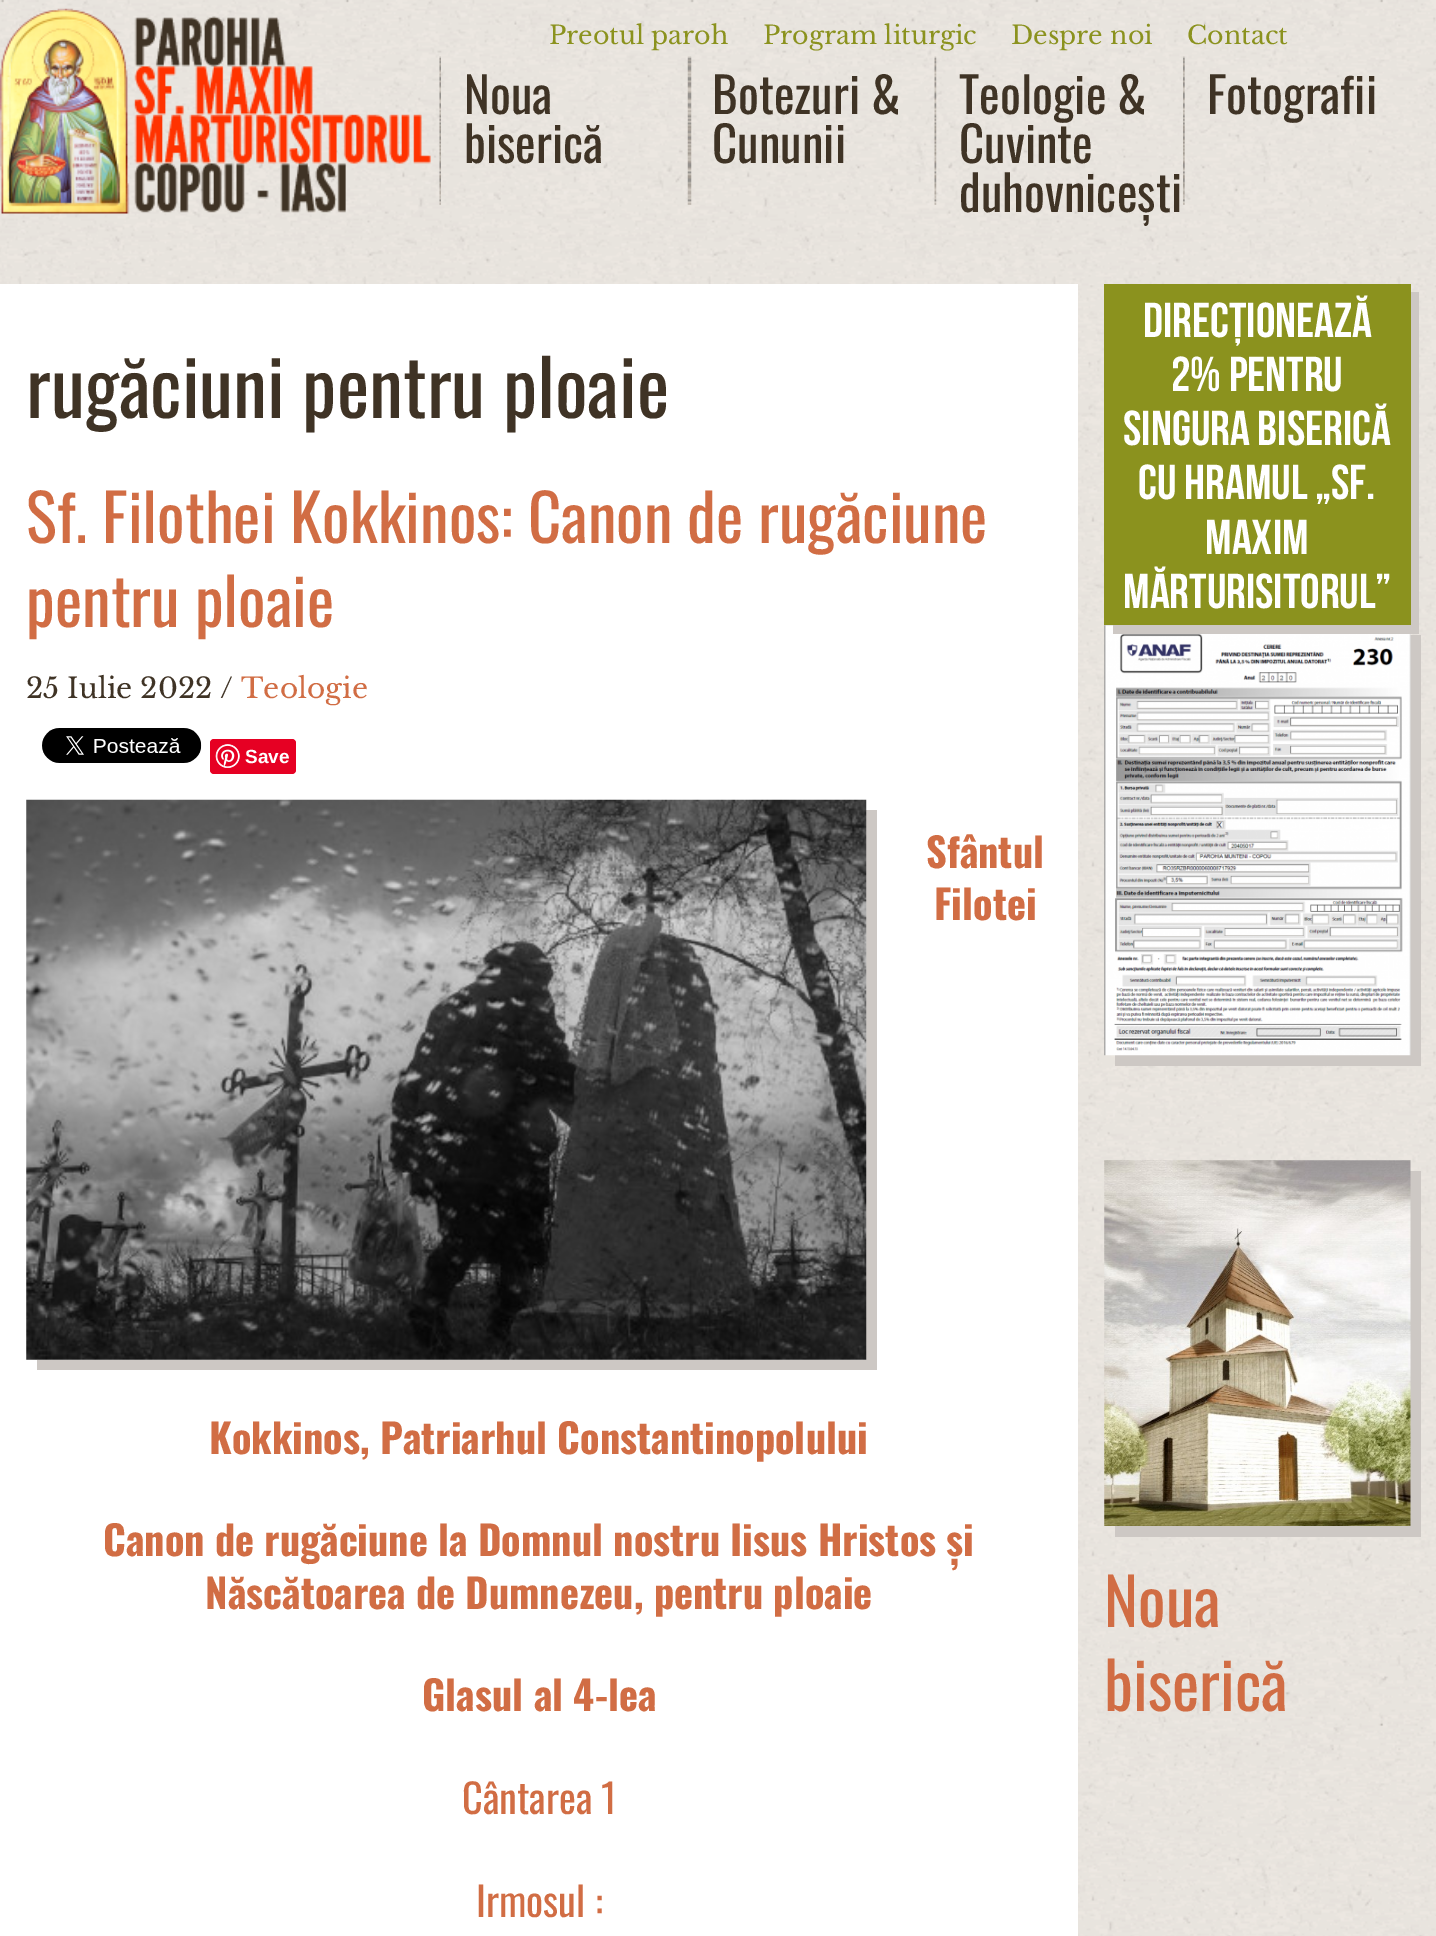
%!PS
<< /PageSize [1436 1936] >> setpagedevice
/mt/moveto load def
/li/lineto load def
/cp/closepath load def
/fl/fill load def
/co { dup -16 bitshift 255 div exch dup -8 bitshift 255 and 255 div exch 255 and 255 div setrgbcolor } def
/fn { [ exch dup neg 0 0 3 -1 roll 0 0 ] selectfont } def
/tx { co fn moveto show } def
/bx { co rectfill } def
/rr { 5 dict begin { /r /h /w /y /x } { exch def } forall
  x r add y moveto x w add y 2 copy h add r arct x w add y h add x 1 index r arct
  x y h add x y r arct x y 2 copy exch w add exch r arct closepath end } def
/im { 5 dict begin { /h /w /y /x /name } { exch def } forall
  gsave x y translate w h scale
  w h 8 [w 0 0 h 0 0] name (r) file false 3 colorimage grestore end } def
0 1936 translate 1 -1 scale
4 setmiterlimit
0 0 1436 1936 16#FFFFFF bx
(media/1.raw) 0 0 1436 1936 im
(media/2.raw) 0 8 431 206 im
(media/3.raw) 439 56 2 149 im
(media/4.raw) 687 56 5 149 im
(media/5.raw) 934 56 3 149 im
(media/6.raw) 1183 56 2 149 im
0 284 1078 1652 16#FFFFFF bx
(media/7.raw) 42 728 160 35 im
16#E60023 co
210 739 86 35 4 rr fl
(media/8.raw) 215 744 25 24 im
16#CDC8C4 co
37 1360 mt 37 1370 li 877 1370 li 877 810 li 866 810 li 866 1360 li cp fl
(media/9.raw) 26 799 841 561 im
1115 1055 mt 1115 1066 li 1421 1066 li 1421 635 li 1410 635 li 1410 1055 li cp fl
(media/10.raw) 1104 625 307 431 im
1113 625 mt 1113 634 li 1419 634 li 1419 292 li 1410 292 li 1410 625 li cp fl
1104 284 307 341 16#8B921E bx
16#CDC8C4 co
1115 1526 mt 1115 1537 li 1421 1537 li 1421 1171 li 1410 1171 li 1410 1526 li cp fl
(media/11.raw) 1104 1160 307 366 im
(Preotul paroh) 549 44 /LibreBaskerville-Regular 25.25 16#8B921E tx
(Program liturgic) 763 44 /LibreBaskerville-Regular 25.25 16#8B921E tx
(Despre noi) 1011 44 /LibreBaskerville-Regular 25.25 16#8B921E tx
(Contact) 1187 44 /LibreBaskerville-Regular 25.25 16#8B921E tx
(Noua) 464 114 /Oswald-Regular 49 16#3F3325 tx
(biserică) 464 163 /Oswald-Regular 49 16#3F3325 tx
(Botezuri &) 712 114 /Oswald-Regular 49 16#3F3325 tx
(Cununii) 712 163 /Oswald-Regular 49 16#3F3325 tx
(Teologie &) 959 114 /Oswald-Regular 49 16#3F3325 tx
(Cuvinte) 959 163 /Oswald-Regular 49 16#3F3325 tx
(duhovnicești) 959 212 /Oswald-Regular 49 16#3F3325 tx
(Fotografii) 1207 114 /Oswald-Regular 49 16#3F3325 tx
(rugăciuni pentru ploaie) 26 418 /Oswald-Regular 77 16#3F3325 tx
(Sf. Filothei Kokkinos: Canon de rugăciune) 26 543 /Oswald-Regular 64.75 16#D16D44 tx
(pentru ploaie) 26 627 /Oswald-Regular 64.75 16#D16D44 tx
(25 Iulie 2022 /) 26 698 /LibreBaskerville-Regular 28 16#3F3325 tx
(Teologie) 241 698 /LibreBaskerville-Regular 28 16#D16D44 tx
(Save) 245 763 /LiberationSans-Bold 19 16#FFFFFF tx
(Sfântul) 926 868 /Oswald-Bold 40.25 16#D16D44 tx
(Filotei) 934 920 /Oswald-Bold 40.25 16#D16D44 tx
(Kokkinos, Patriarhul Constantinopolului) 209 1454 /Oswald-Bold 40.25 16#D16D44 tx
(Canon de rugăciune la Domnul nostru Iisus Hristos și) 103 1556 /Oswald-Bold 40.25 16#D16D44 tx
(Născătoarea de Dumnezeu, pentru ploaie) 205 1609 /Oswald-Bold 40.25 16#D16D44 tx
(Glasul al 4-lea) 422 1711 /Oswald-Bold 40.25 16#D16D44 tx
(Cântarea 1) 462 1814 /Oswald-Regular 40.25 16#D16D44 tx
(Irmosul :) 476 1917 /Oswald-Regular 40.25 16#D16D44 tx
(Direcționează) 1143 337 /BebasNeue-Regular 49 16#FFFFFF tx
(2% pentru) 1171 391 /BebasNeue-Regular 49 16#FFFFFF tx
(singura biserică) 1123 445 /BebasNeue-Regular 49 16#FFFFFF tx
(cu hramul „Sf.) 1138 499 /BebasNeue-Regular 49 16#FFFFFF tx
(Maxim) 1205 554 /BebasNeue-Regular 49 16#FFFFFF tx
(Mărturisitorul”) 1123 608 /BebasNeue-Regular 49 16#FFFFFF tx
(Noua) 1104 1627 /Oswald-Regular 64.75 16#D16D44 tx
(biserică) 1104 1711 /Oswald-Regular 64.75 16#D16D44 tx
showpage
